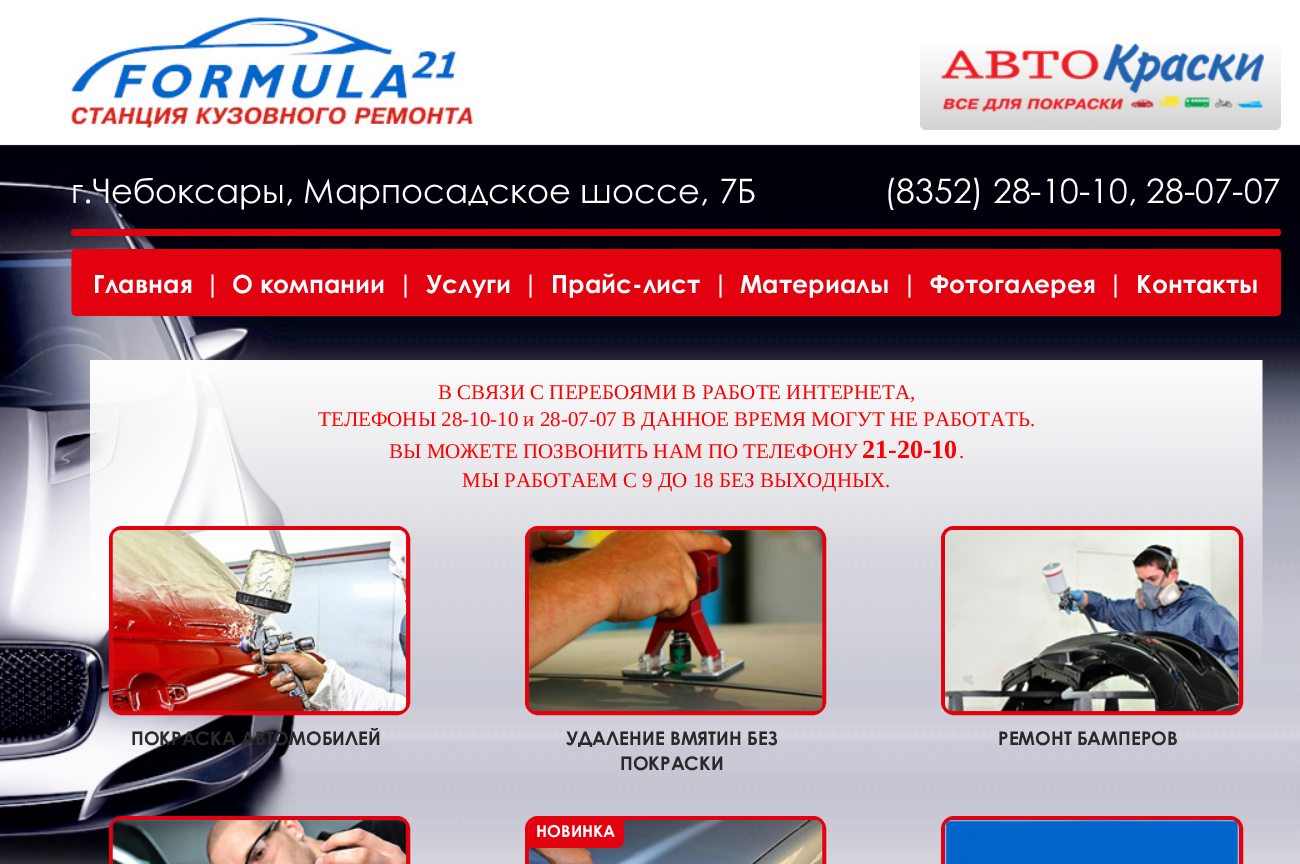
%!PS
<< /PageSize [1300 864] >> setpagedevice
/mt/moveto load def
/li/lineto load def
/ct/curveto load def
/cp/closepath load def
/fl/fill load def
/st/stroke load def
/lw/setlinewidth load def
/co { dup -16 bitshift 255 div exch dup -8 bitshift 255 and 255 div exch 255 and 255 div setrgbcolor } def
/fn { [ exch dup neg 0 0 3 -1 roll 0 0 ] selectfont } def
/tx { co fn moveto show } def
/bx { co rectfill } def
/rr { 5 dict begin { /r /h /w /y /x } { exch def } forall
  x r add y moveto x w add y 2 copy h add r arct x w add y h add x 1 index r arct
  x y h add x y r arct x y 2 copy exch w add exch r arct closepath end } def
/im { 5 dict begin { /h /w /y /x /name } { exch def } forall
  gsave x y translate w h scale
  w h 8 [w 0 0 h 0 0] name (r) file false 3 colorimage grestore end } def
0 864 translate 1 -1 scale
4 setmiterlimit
0 0 1300 864 16#FFFFFF bx
(media/1.raw) 0 0 1300 864 im
(media/2.raw) 0 144 297 720 im
(media/3.raw) 71 17 402 111 im
(media/4.raw) 920 43 361 87 im
16#E3010F co
71 229 1210 7 3.5 rr fl
(media/5.raw) 71 248 1210 69 im
(media/6.raw) 90 360 1173 307 im
4 lw
111 528 297 185 11 rr st
(media/7.raw) 112 530 295 182 im
527 528 297 185 11 rr st
(media/8.raw) 528 530 295 182 im
943 528 298 185 11 rr st
(media/9.raw) 945 530 294 182 im
111 818 297 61 11 rr st
(media/10.raw) 112 820 295 44 im
527 818 297 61 11 rr st
(media/11.raw) 528 820 295 44 im
537 820 mt 624 820 li 624 840 li 624 844.5 620.5 848 616 848 ct 529 848 li 529 828 li 529 823.5 532.5 820 537 820 ct cp fl
943 818 298 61 11 rr st
(media/12.raw) 945 820 294 44 im
(г.Чебоксары, Марпосадское шоссе, 7Б) 71 203 /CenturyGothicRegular-Regular 33.75 16#FFFFFF tx
(\(8352\) 28-10-10, 28-07-07) 884 203 /CenturyGothicRegular-Regular 33.75 16#FFFFFF tx
(Главная) 93 293 /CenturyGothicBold-Bold 25 16#FFFFFF tx
(|) 205 293 /CenturyGothicBold-Bold 25 16#FFFFFF tx
(О компании) 232 293 /CenturyGothicBold-Bold 25 16#FFFFFF tx
(|) 398 293 /CenturyGothicBold-Bold 25 16#FFFFFF tx
(Услуги) 426 293 /CenturyGothicBold-Bold 25 16#FFFFFF tx
(|) 523 293 /CenturyGothicBold-Bold 25 16#FFFFFF tx
(Прайс-лист) 551 293 /CenturyGothicBold-Bold 25 16#FFFFFF tx
(|) 713 293 /CenturyGothicBold-Bold 25 16#FFFFFF tx
(Материалы) 740 293 /CenturyGothicBold-Bold 25 16#FFFFFF tx
(|) 902 293 /CenturyGothicBold-Bold 25 16#FFFFFF tx
(Фотогалерея) 930 293 /CenturyGothicBold-Bold 25 16#FFFFFF tx
(|) 1108 293 /CenturyGothicBold-Bold 25 16#FFFFFF tx
(Контакты) 1136 293 /CenturyGothicBold-Bold 25 16#FFFFFF tx
(В СВЯЗИ С ПЕРЕБОЯМИ В РАБОТЕ ИНТЕРНЕТА,) 438 399 /LiberationSerif-Regular 21 16#FF0000 tx
(ТЕЛЕФОНЫ 28-10-10 и 28-07-07 В ДАННОЕ ВРЕМЯ МОГУТ НЕ РАБОТАТЬ.) 318 426 /LiberationSerif-Regular 21 16#FF0000 tx
(ВЫ МОЖЕТЕ ПОЗВОНИТЬ НАМ ПО ТЕЛЕФОНУ) 389 458 /LiberationSerif-Regular 21 16#FF0000 tx
(21-20-10) 862 458 /LiberationSerif-Bold 26 16#FF0000 tx
(.) 959 458 /LiberationSerif-Regular 21 16#FF0000 tx
(МЫ РАБОТАЕМ С 9 ДО 18 БЕЗ ВЫХОДНЫХ.) 462 487 /LiberationSerif-Regular 21 16#FF0000 tx
(ПОКРАСКА АВТОМОБИЛЕЙ) 131 745 /CenturyGothicBold-Bold 18.75 16#2A2A2A tx
(УДАЛЕНИЕ ВМЯТИН БЕЗ) 566 745 /CenturyGothicBold-Bold 18.75 16#2A2A2A tx
(ПОКРАСКИ) 620 770 /CenturyGothicBold-Bold 18.75 16#2A2A2A tx
(РЕМОНТ БАМПЕРОВ) 998 745 /CenturyGothicBold-Bold 18.75 16#2A2A2A tx
(НОВИНКА) 536 837 /CenturyGothicBold-Bold 16.5 16#FFFFFF tx
showpage
